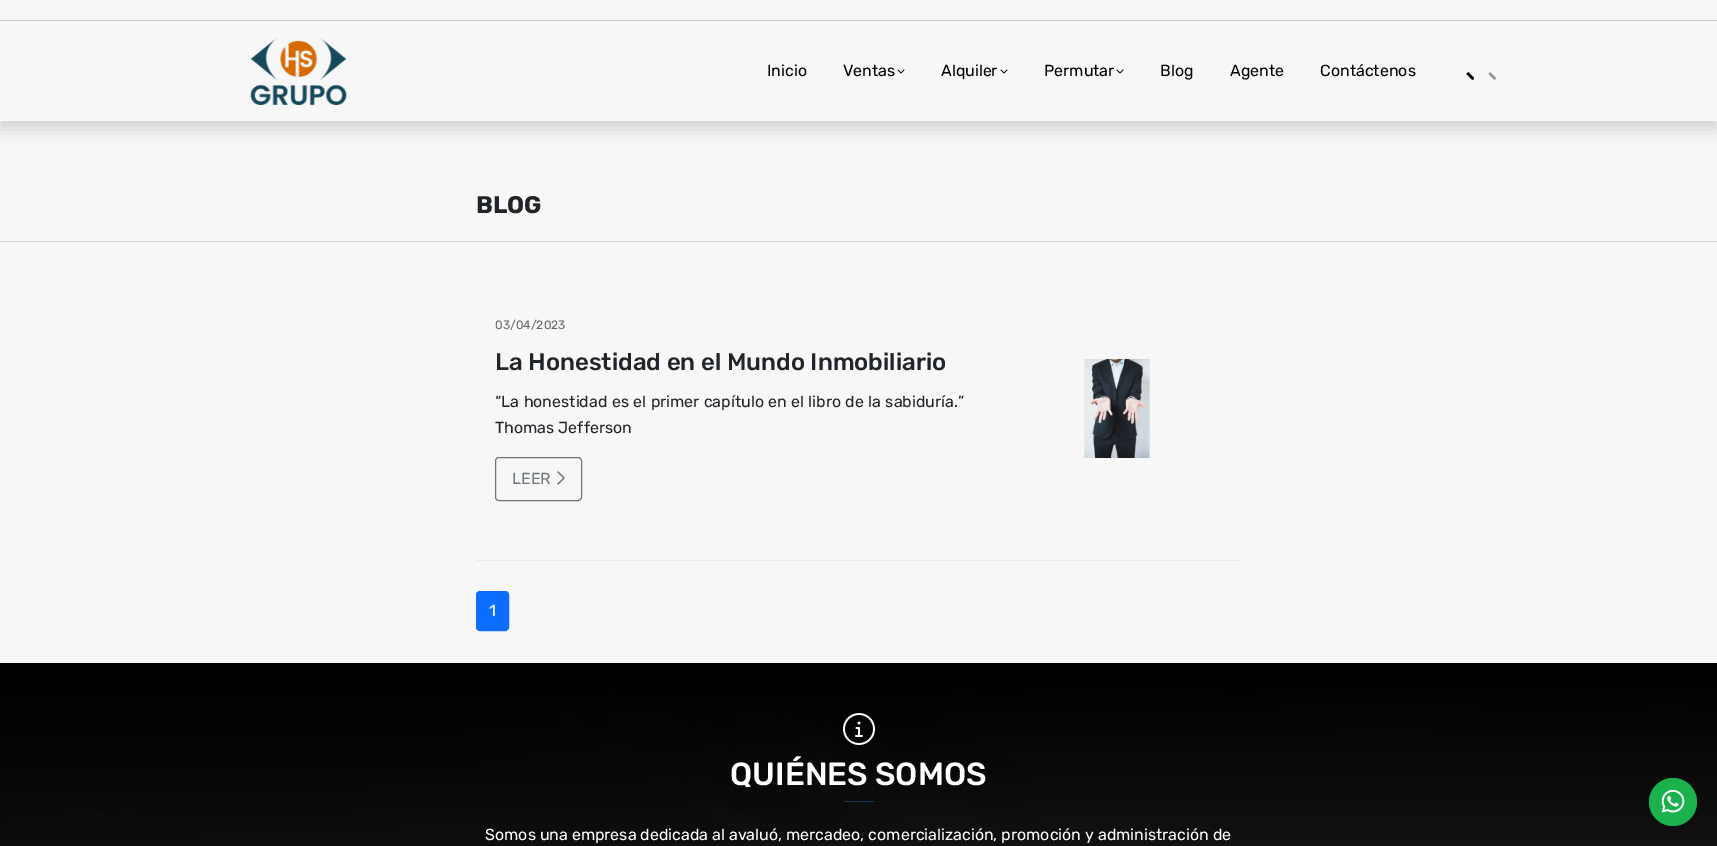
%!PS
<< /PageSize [1717 846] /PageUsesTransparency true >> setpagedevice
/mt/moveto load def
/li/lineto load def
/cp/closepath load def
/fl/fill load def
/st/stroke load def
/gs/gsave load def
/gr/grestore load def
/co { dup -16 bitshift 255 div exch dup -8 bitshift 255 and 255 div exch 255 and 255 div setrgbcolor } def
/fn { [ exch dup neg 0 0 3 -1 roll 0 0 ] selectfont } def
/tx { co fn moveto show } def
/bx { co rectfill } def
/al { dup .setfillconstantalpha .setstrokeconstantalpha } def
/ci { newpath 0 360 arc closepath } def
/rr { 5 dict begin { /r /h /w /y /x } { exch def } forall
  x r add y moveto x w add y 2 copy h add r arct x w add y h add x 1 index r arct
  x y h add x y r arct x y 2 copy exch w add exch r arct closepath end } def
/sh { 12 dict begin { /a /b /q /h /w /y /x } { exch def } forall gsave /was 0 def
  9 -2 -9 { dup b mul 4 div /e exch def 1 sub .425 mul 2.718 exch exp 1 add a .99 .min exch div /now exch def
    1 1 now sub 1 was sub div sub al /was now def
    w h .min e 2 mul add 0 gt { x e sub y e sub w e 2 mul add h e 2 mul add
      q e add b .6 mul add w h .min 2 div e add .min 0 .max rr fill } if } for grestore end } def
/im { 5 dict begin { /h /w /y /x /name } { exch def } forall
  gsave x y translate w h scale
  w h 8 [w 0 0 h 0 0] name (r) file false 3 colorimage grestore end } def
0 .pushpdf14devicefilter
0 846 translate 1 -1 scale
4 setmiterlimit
0 0 1717 846 16#F7F7F7 bx
0 20 1717 1 16#CED4DA bx
gs
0 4 mt 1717 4 li 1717 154 li 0 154 li cp 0 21 mt 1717 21 li 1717 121 li 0 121 li cp eoclip newpath
16#000000 co
0 29 1717 100 0 8 .15 sh
gr
(media/1.raw) 250 38 97 67 im
(media/2.raw) 897 69 8 5 im
(media/2.raw) 1000 69 8 5 im
(media/2.raw) 1116 69 8 5 im
(media/3.raw) 1466 72 8 8 im
(media/4.raw) 1466 72 30 8 im
0 241 1717 1 16#D2D2D2 bx
476 560 765 1 16#E9ECEF bx
16#6C757D co
495.5 457.5 86 43 3.5 rr st
(media/5.raw) 557 471 8 14 im
(media/6.raw) 1084 359 66 99 im
16#0D6EFD co
476.5 591.5 32 39 3.5 rr gs fl gr
st
(media/7.raw) 0 663 1717 183 im
(media/8.raw) 843 713 32 32 im
844 801 30 1 16#10395B bx
16#1BB24E co
1673 802 24 ci fl
(media/9.raw) 1661 789 24 24 im
(Inicio) 767 76 /Rubik-Regular 16 16#000000 tx
(Ventas) 843 76 /Rubik-Regular 16 16#000000 tx
(Alquiler) 941 76 /Rubik-Regular 16 16#000000 tx
(Permutar) 1044 76 /Rubik-Regular 16 16#000000 tx
(Blog) 1160 76 /Rubik-Regular 16 16#000000 tx
(Agente) 1230 76 /Rubik-Regular 16 16#000000 tx
(Contáctenos) 1320 76 /Rubik-Regular 16 16#000000 tx
(BLOG) 476 213 /Rubik-Bold 24 16#212529 tx
(03/04/2023) 495 329 /Rubik-Regular 12 16#666666 tx
(La Honestidad en el Mundo Inmobiliario) 495 370 /Rubik-Medium 24 16#212529 tx
/Rubik-Regular 16 fn
495 407 mt .5 0 32 (“La honestidad es el primer capítulo en el libro de la sabiduría.”) widthshow
(Thomas Jefferson) 495 433 /Rubik-Regular 16 16#212529 tx
(LEER) 512 484 /Rubik-Regular 16 16#6C757D tx
(1) 489 616 /Rubik-Regular 16 16#FFFFFF tx
(QUIÉNES SOMOS) 730 785 /Rubik-Medium 32 16#FFFFFF tx
(Somos una empresa dedicada al avaluó, mercadeo, comercialización, promoción y administración de) 485 840 /Rubik-Regular 16 16#FFFFFF tx
.poppdf14devicefilter showpage
